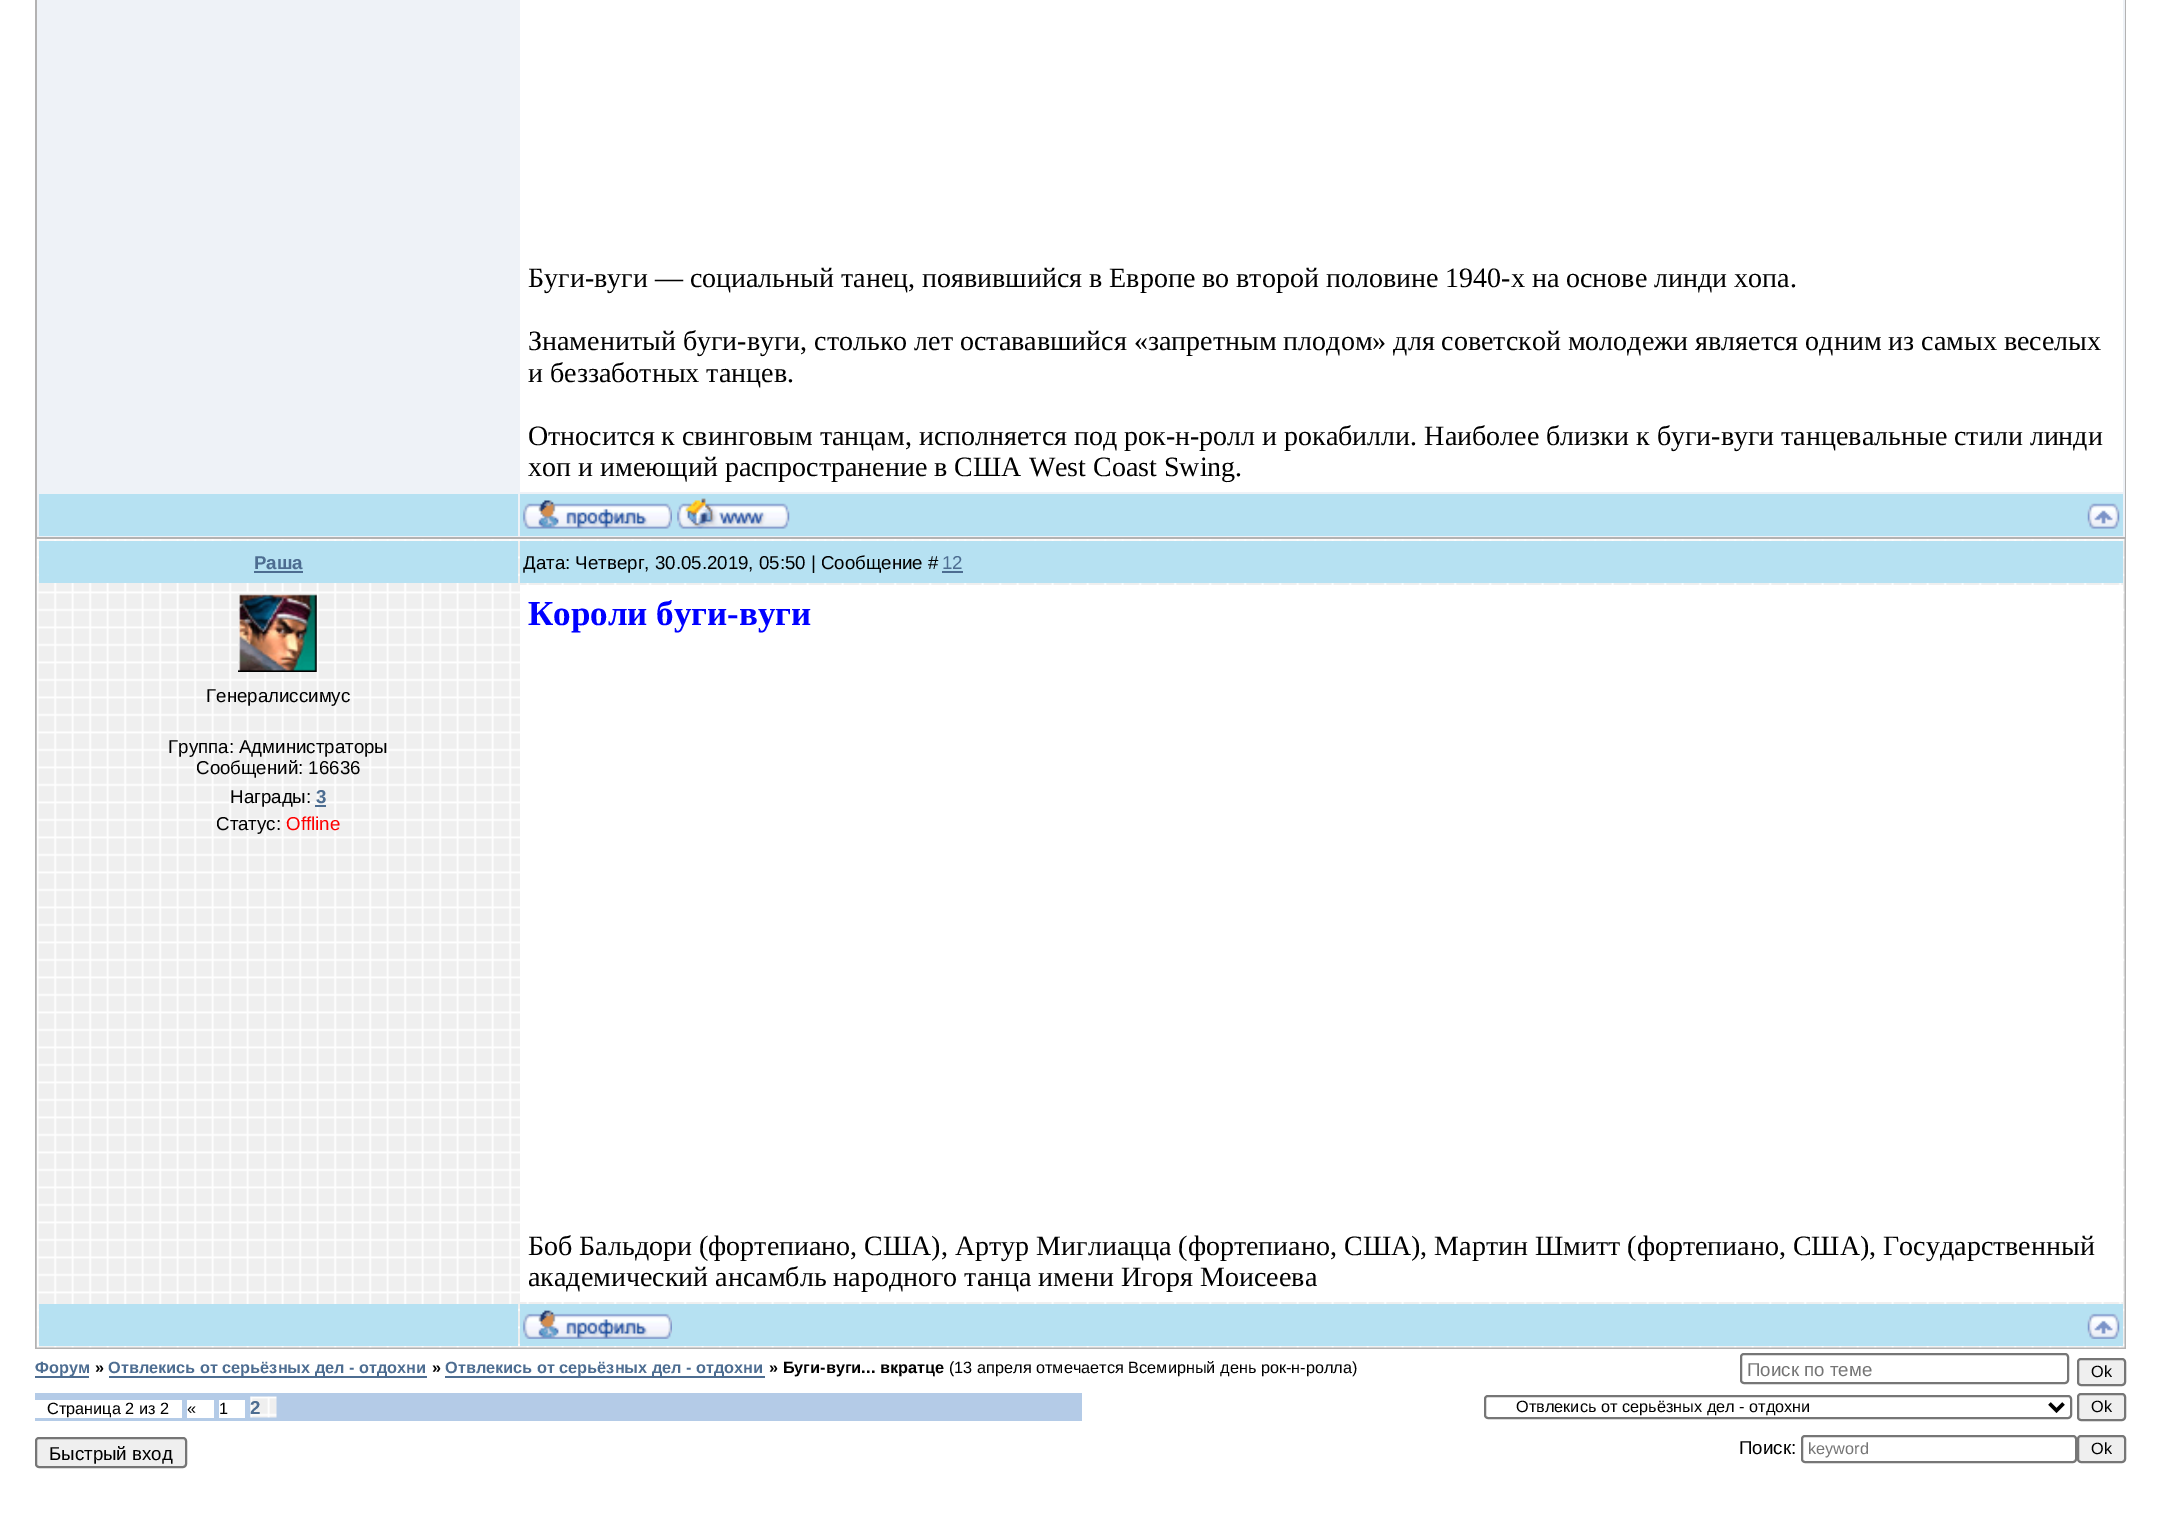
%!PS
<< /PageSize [2161 1532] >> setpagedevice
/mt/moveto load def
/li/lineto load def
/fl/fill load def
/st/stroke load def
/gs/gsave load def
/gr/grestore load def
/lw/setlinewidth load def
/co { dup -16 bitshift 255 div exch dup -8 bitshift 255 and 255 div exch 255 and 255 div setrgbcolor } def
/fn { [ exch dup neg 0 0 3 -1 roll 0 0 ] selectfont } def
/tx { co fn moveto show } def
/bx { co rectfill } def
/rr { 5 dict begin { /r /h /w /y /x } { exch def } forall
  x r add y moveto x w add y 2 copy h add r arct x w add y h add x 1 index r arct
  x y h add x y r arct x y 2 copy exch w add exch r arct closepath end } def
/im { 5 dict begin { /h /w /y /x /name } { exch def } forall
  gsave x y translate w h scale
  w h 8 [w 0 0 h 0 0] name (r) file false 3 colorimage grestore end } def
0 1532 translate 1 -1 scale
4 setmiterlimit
0 0 2161 1532 16#FFFFFF bx
35 0 2091 1349 16#B3B2B2 bx
37 0 2088 537 16#EEF2F7 bx
520 0 1603 492 16#FFFFFF bx
39 494 479 42 16#B6E1F2 bx
520 494 1603 42 16#B6E1F2 bx
(media/1.raw) 523 500 149 29 im
(media/2.raw) 677 498 113 31 im
(media/3.raw) 2087 503 33 26 im
(media/4.raw) 36 539 2089 809 im
39 541 479 42 16#B6E1F2 bx
254 571 49 2 16#4D6D91 bx
520 541 1603 42 16#B6E1F2 bx
942 571 21 2 16#4D6D91 bx
(media/5.raw) 238 593 79 79 im
315 805 11 2 16#4D6D91 bx
520 585 1603 717 16#FFFFFF bx
39 1304 479 42 16#B6E1F2 bx
520 1304 1603 42 16#B6E1F2 bx
(media/6.raw) 523 1310 149 29 im
(media/7.raw) 2087 1313 33 26 im
35 1376 54 2 16#4D6D91 bx
109 1376 318 2 16#4D6D91 bx
445 1376 320 2 16#4D6D91 bx
16#767676 co
2 lw
1741 1354 327 29 3 rr st
16#EFEFEF co
2078 1359 47 26 3 rr gs fl gr
16#767676 co
st
35 1393 1047 28 16#B4CBE7 bx
35 1400 147 18 16#FFFFFF bx
187 1400 27 18 16#FFFFFF bx
219 1400 26 18 16#FFFFFF bx
(media/8.raw) 250 1396 27 22 im
16#767676 co
1485 1396 586 22 3 rr st
16#000000 co
3.5 lw
2049.5 1403.5 mt 2056.5 1410.5 li 2063.5 1403.5 li st
16#EFEFEF co
2078 1394 47 26 3 rr gs fl gr
16#767676 co
2 lw
st
16#EFEFEF co
36 1438 150 29 3 rr gs fl gr
16#767676 co
st
1802 1436 274 26 3 rr st
16#EFEFEF co
2078 1436 47 26 3 rr gs fl gr
16#767676 co
st
(Буги-вуги — социальный танец, появившийся в Европе во второй половине 1940-х на основе линди хопа.) 528 287 /LiberationSerif-Regular 28 16#000000 tx
(Знаменитый буги-вуги, столько лет остававшийся «запретным плодом» для советской молодежи является одним из самых веселых) 528 350 /LiberationSerif-Regular 28 16#000000 tx
(и беззаботных танцев.) 528 382 /LiberationSerif-Regular 28 16#000000 tx
(Относится к свинговым танцам, исполняется под рок-н-ролл и рокабилли. Наиболее близки к буги-вуги танцевальные стили линди) 528 445 /LiberationSerif-Regular 28 16#000000 tx
(хоп и имеющий распространение в США West Coast Swing.) 528 476 /LiberationSerif-Regular 28 16#000000 tx
(Раша) 254 569 /LiberationSans-Bold 18.7 16#4D6D91 tx
(Дата: Четверг, 30.05.2019, 05:50 | Сообщение #) 523 569 /LiberationSans-Regular 18.7 16#000000 tx
(12) 942 569 /LiberationSans-Regular 18.7 16#4D6D91 tx
(Генералиссимус) 206 702 /LiberationSans-Regular 18.7 16#000000 tx
(Группа: Администраторы) 168 753 /LiberationSans-Regular 18.7 16#000000 tx
(Сообщений: 16636) 196 774 /LiberationSans-Regular 18.7 16#000000 tx
(Награды:) 230 803 /LiberationSans-Regular 18.7 16#000000 tx
(3) 316 803 /LiberationSans-Bold 18.7 16#4D6D91 tx
(Статус:) 216 830 /LiberationSans-Regular 18.7 16#000000 tx
(Offline) 286 830 /LiberationSans-Regular 18.7 16#FF0000 tx
(Короли буги-вуги) 528 625 /LiberationSerif-Bold 35 16#0000FF tx
(Боб Бальдори \(фортепиано, США\), Артур Миглиацца \(фортепиано, США\), Мартин Шмитт \(фортепиано, США\), Государственный) 528 1255 /LiberationSerif-Regular 28 16#000000 tx
(академический ансамбль народного танца имени Игоря Моисеева) 528 1286 /LiberationSerif-Regular 28 16#000000 tx
(Форум) 35 1373 /LiberationSans-Bold 16.3 16#4D6D91 tx
(») 95 1373 /LiberationSans-Bold 16.3 16#000000 tx
(Отвлекись от серьёзных дел - отдохни) 108 1373 /LiberationSans-Bold 16.3 16#4D6D91 tx
(») 432 1373 /LiberationSans-Bold 16.3 16#000000 tx
(Отвлекись от серьёзных дел - отдохни) 445 1373 /LiberationSans-Bold 16.3 16#4D6D91 tx
(» Буги-вуги... вкратце) 769 1373 /LiberationSans-Bold 16.3 16#000000 tx
(\(13 апреля отмечается Всемирный день рок-н-ролла\)) 949 1373 /LiberationSans-Regular 16.3 16#000000 tx
(Поиск по теме) 1747 1376 /LiberationSans-Regular 18.7 16#757575 tx
(Ok) 2091 1377 /LiberationSans-Regular 16.3 16#000000 tx
(Страница 2 из 2) 47 1414 /LiberationSans-Regular 16.3 16#000000 tx
(«) 187 1414 /LiberationSans-Regular 16.3 16#000000 tx
(1) 219 1414 /LiberationSans-Regular 16.3 16#000000 tx
(2) 250 1414 /LiberationSans-Bold 18.7 16#4D6D91 tx
(Отвлекись от серьёзных дел - отдохни) 1516 1412 /LiberationSans-Regular 16.3 16#000000 tx
(Ok) 2091 1412 /LiberationSans-Regular 16.3 16#000000 tx
(Быстрый вход) 49 1460 /LiberationSans-Regular 18.7 16#000000 tx
(Поиск:) 1739 1454 /LiberationSans-Regular 18.7 16#000000 tx
(keyword) 1808 1454 /LiberationSans-Regular 16.3 16#757575 tx
(Ok) 2091 1454 /LiberationSans-Regular 16.3 16#000000 tx
showpage
